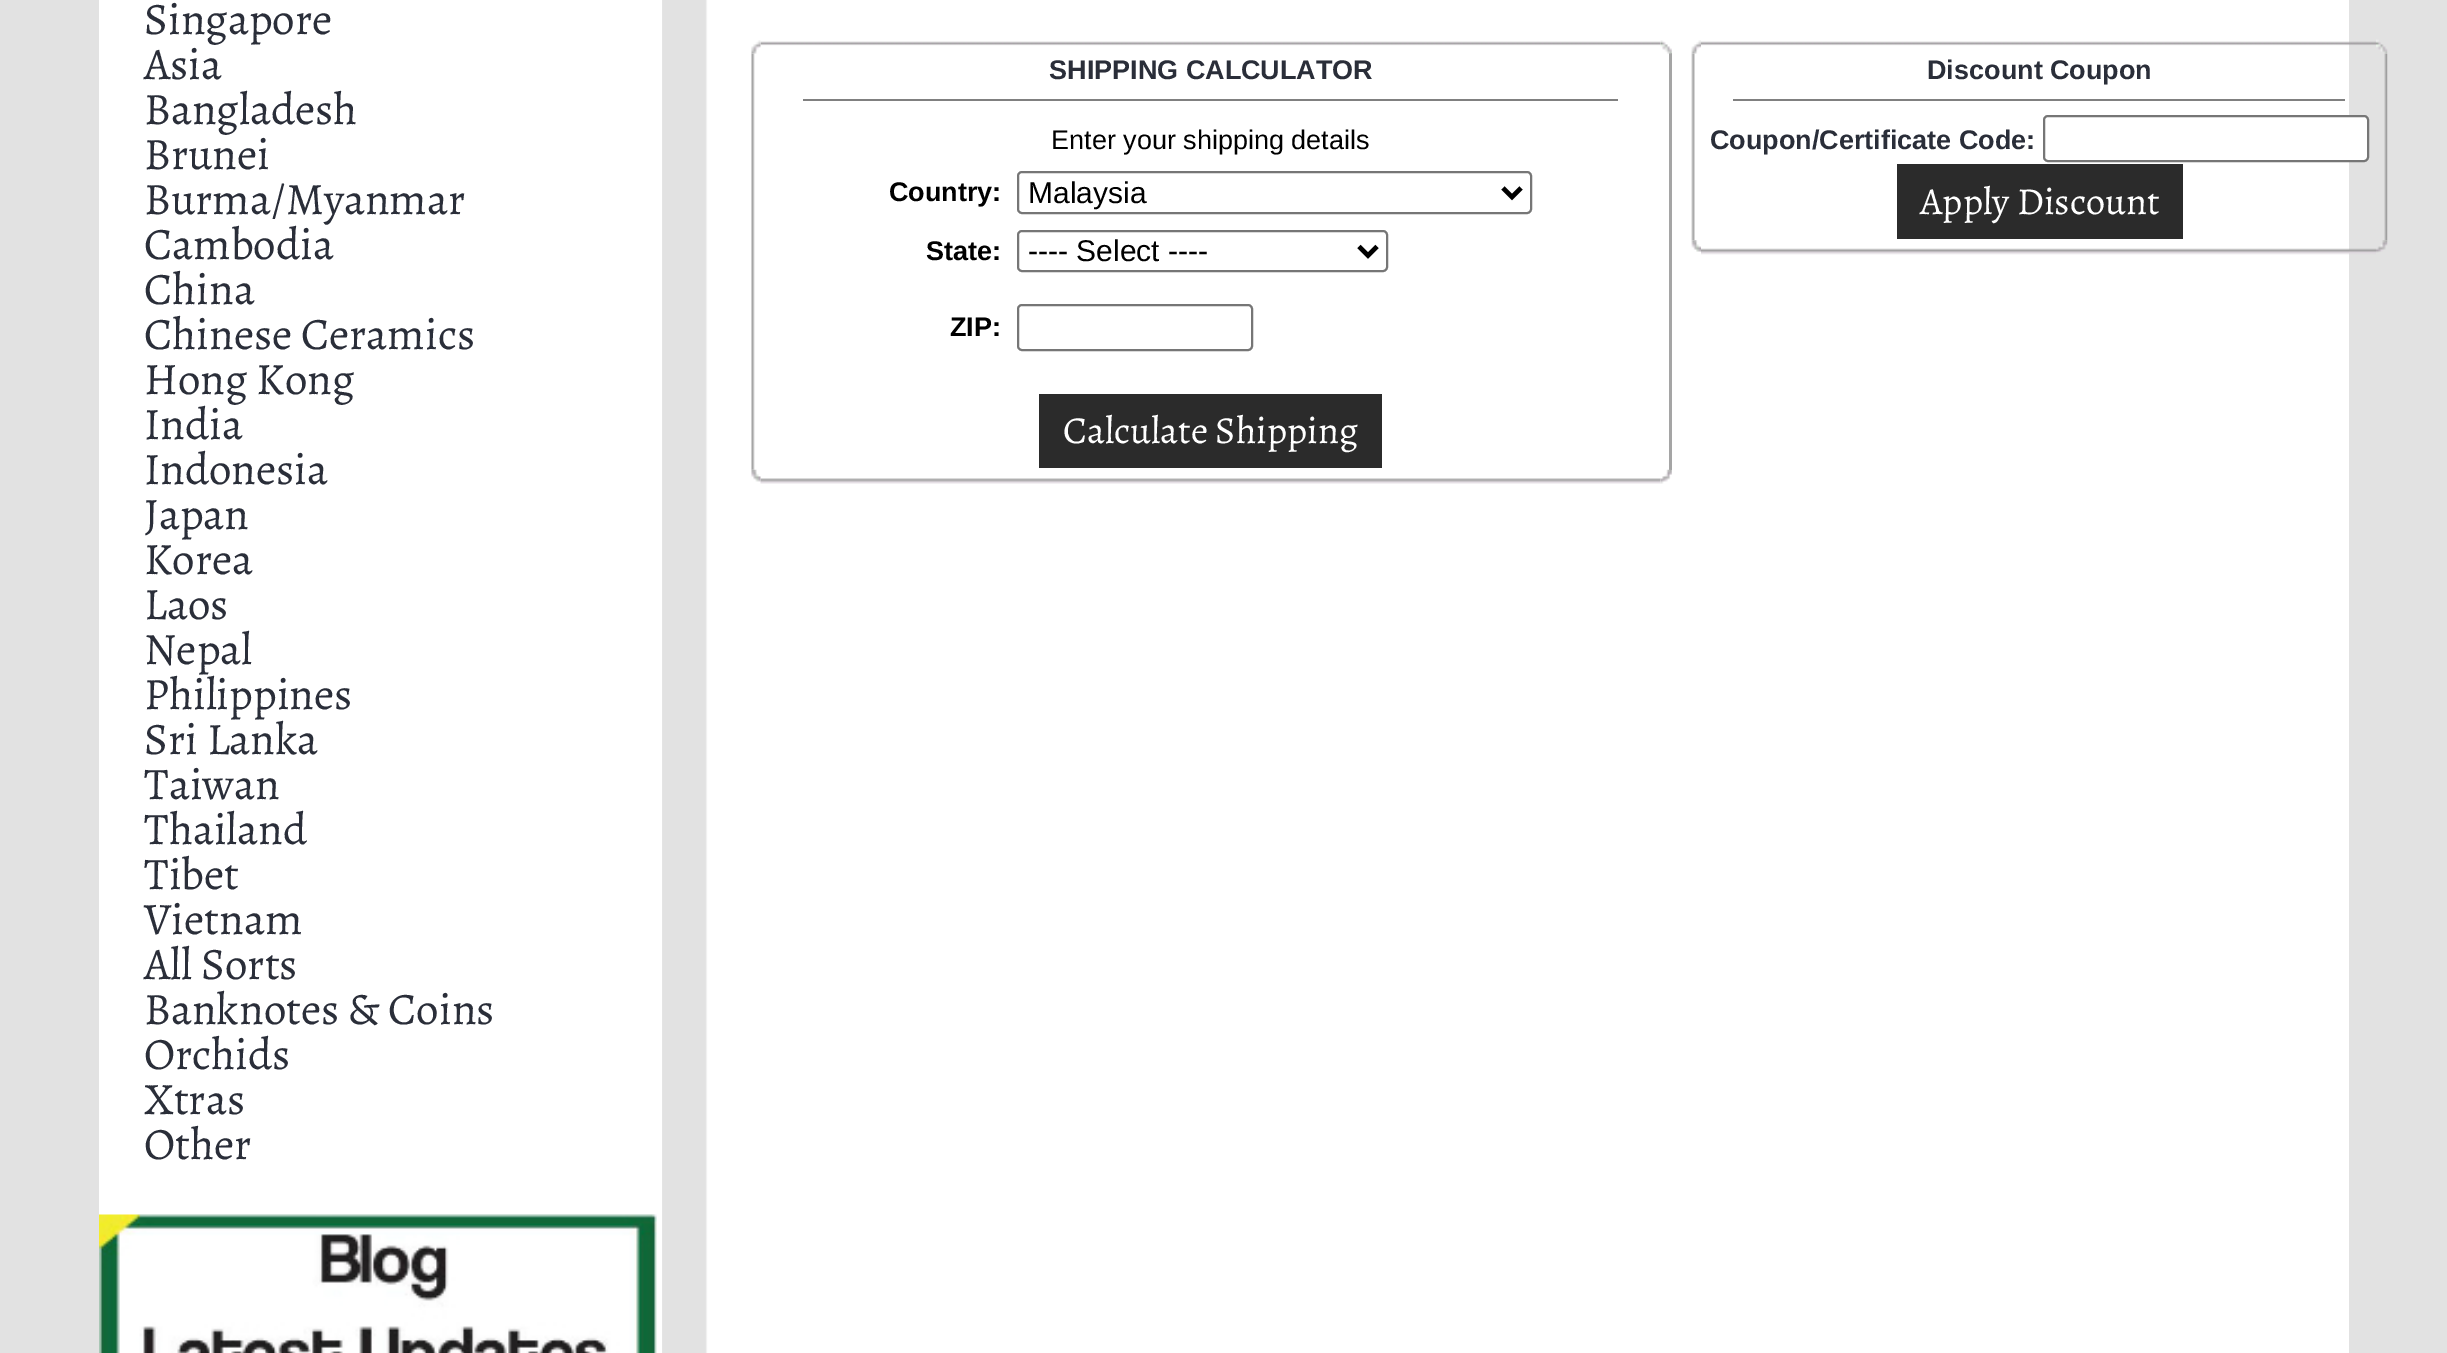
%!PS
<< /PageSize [2447 1353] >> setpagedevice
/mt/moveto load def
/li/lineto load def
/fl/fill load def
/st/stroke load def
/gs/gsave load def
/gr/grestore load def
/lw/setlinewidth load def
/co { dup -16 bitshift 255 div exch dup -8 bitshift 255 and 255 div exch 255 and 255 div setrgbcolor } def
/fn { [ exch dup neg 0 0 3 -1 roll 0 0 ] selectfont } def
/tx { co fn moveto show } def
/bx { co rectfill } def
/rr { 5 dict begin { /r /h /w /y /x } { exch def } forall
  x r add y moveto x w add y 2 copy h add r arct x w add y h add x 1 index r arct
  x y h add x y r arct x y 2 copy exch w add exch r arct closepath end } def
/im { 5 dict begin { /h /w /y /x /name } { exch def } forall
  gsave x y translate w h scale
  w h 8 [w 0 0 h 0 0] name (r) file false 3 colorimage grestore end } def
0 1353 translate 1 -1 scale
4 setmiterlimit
0 0 2447 1353 16#E2E2E2 bx
(media/1.raw) 662 0 1687 1353 im
99 0 563 1353 16#FFFFFF bx
(media/2.raw) 99 1214 558 139 im
(media/4.raw) 760 41 901 5 im
(media/6.raw) 751 53 4 417 im
(media/3.raw) 751 40 10 14 im
1669 53 3 417 16#A5A5A5 bx
(media/5.raw) 1660 40 12 14 im
803 99 815 2 16#808080 bx
16#767676 co
2 lw
1018 172 513 41 4 rr st
16#000000 co
4.5 lw
1503 188 mt 1512 197 li 1521 188 li st
16#767676 co
2 lw
1018 231 369 40 4 rr st
16#000000 co
4.5 lw
1359 246.5 mt 1368 255.5 li 1377 246.5 li st
16#767676 co
2 lw
1018 305 234 45 4 rr st
1039 394 343 74 16#2B2B2B bx
(media/8.raw) 760 478 901 6 im
(media/7.raw) 751 469 10 13 im
(media/9.raw) 1660 469 12 15 im
(media/13.raw) 1691 53 4 188 im
(media/10.raw) 1691 40 10 14 im
(media/11.raw) 1701 41 675 5 im
(media/12.raw) 2376 39 12 14 im
1733 99 612 2 16#808080 bx
16#FFFFFF co
2044 116 324 45 4 rr gs fl gr
16#767676 co
st
1897 164 286 75 16#2B2B2B bx
(media/14.raw) 2384 53 4 188 im
(media/15.raw) 1691 240 10 12 im
(media/16.raw) 1701 248 675 7 im
(media/17.raw) 2376 240 12 13 im
(Singapore) 144 34 /Alegreya-Regular 45 16#2A2E39 tx
(Asia) 144 79 /Alegreya-Regular 45 16#2A2E39 tx
(Bangladesh) 144 124 /Alegreya-Regular 45 16#2A2E39 tx
(Brunei) 144 169 /Alegreya-Regular 45 16#2A2E39 tx
(Burma/Myanmar) 144 214 /Alegreya-Regular 45 16#2A2E39 tx
(Cambodia) 144 259 /Alegreya-Regular 45 16#2A2E39 tx
(China) 144 304 /Alegreya-Regular 45 16#2A2E39 tx
(Chinese Ceramics) 144 349 /Alegreya-Regular 45 16#2A2E39 tx
(Hong Kong) 144 394 /Alegreya-Regular 45 16#2A2E39 tx
(India) 144 439 /Alegreya-Regular 45 16#2A2E39 tx
(Indonesia) 144 484 /Alegreya-Regular 45 16#2A2E39 tx
(Japan) 144 529 /Alegreya-Regular 45 16#2A2E39 tx
(Korea) 144 574 /Alegreya-Regular 45 16#2A2E39 tx
(Laos) 144 619 /Alegreya-Regular 45 16#2A2E39 tx
(Nepal) 144 664 /Alegreya-Regular 45 16#2A2E39 tx
(Philippines) 144 709 /Alegreya-Regular 45 16#2A2E39 tx
(Sri Lanka) 144 754 /Alegreya-Regular 45 16#2A2E39 tx
(Taiwan) 144 799 /Alegreya-Regular 45 16#2A2E39 tx
(Thailand) 144 844 /Alegreya-Regular 45 16#2A2E39 tx
(Tibet) 144 889 /Alegreya-Regular 45 16#2A2E39 tx
(Vietnam) 144 934 /Alegreya-Regular 45 16#2A2E39 tx
(All Sorts) 144 979 /Alegreya-Regular 45 16#2A2E39 tx
(Banknotes & Coins) 144 1024 /Alegreya-Regular 45 16#2A2E39 tx
(Orchids) 144 1069 /Alegreya-Regular 45 16#2A2E39 tx
(Xtras) 144 1114 /Alegreya-Regular 45 16#2A2E39 tx
(Other) 144 1159 /Alegreya-Regular 45 16#2A2E39 tx
(SHIPPING CALCULATOR) 1049 79 /LiberationSans-Bold 27 16#2A2E39 tx
(Enter your shipping details) 1051 149 /LiberationSans-Regular 27 16#000000 tx
(Country:) 889 201 /LiberationSans-Bold 27 16#000000 tx
(Malaysia) 1028 203 /LiberationSans-Regular 30 16#000000 tx
(State:) 926 260 /LiberationSans-Bold 27 16#000000 tx
(---- Select ----) 1028 261 /LiberationSans-Regular 30 16#000000 tx
(ZIP:) 950 336 /LiberationSans-Bold 27 16#000000 tx
(Calculate Shipping) 1063 443 /Alegreya-Regular 38.25 16#FFFFFF tx
(Discount Coupon) 1927 79 /LiberationSans-Bold 27 16#2A2E39 tx
(Coupon/Certificate Code:) 1710 149 /LiberationSans-Bold 27 16#2A2E39 tx
(Apply Discount) 1920 214 /Alegreya-Regular 38.25 16#FFFFFF tx
showpage
